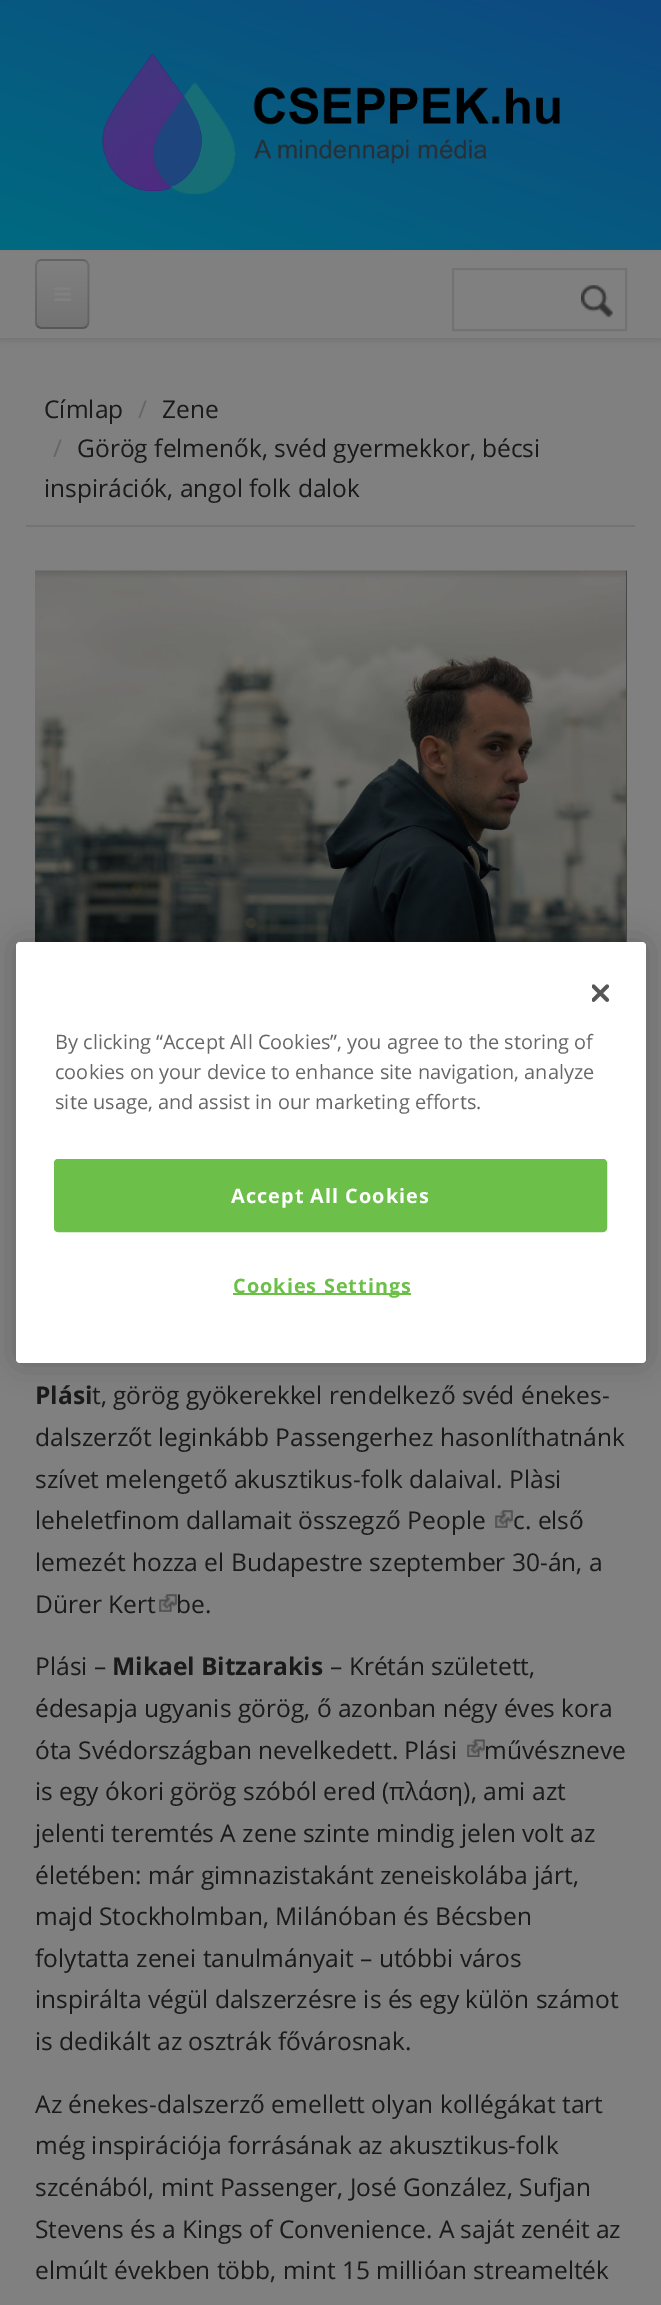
%!PS
<< /PageSize [661 2305] /PageUsesTransparency true >> setpagedevice
/mt/moveto load def
/li/lineto load def
/ct/curveto load def
/cp/closepath load def
/fl/fill load def
/st/stroke load def
/gs/gsave load def
/gr/grestore load def
/lw/setlinewidth load def
/co { dup -16 bitshift 255 div exch dup -8 bitshift 255 and 255 div exch 255 and 255 div setrgbcolor } def
/fn { [ exch dup neg 0 0 3 -1 roll 0 0 ] selectfont } def
/tx { co fn moveto show } def
/bx { co rectfill } def
/al { dup .setfillconstantalpha .setstrokeconstantalpha } def
/rr { 5 dict begin { /r /h /w /y /x } { exch def } forall
  x r add y moveto x w add y 2 copy h add r arct x w add y h add x 1 index r arct
  x y h add x y r arct x y 2 copy exch w add exch r arct closepath end } def
/sh { 12 dict begin { /a /b /q /h /w /y /x } { exch def } forall gsave /was 0 def
  9 -2 -9 { dup b mul 4 div /e exch def 1 sub .425 mul 2.718 exch exp 1 add a .99 .min exch div /now exch def
    1 1 now sub 1 was sub div sub al /was now def
    w h .min e 2 mul add 0 gt { x e sub y e sub w e 2 mul add h e 2 mul add
      q e add b .6 mul add w h .min 2 div e add .min 0 .max rr fill } if } for grestore end } def
/im { 5 dict begin { /h /w /y /x /name } { exch def } forall
  gsave x y translate w h scale
  w h 8 [w 0 0 h 0 0] name (r) file false 3 colorimage grestore end } def
0 .pushpdf14devicefilter
0 2305 translate 1 -1 scale
4 setmiterlimit
0 0 661 2305 16#808080 bx
gs 0 0 mt 661 0 li 661 250 li 0 250 li cp clip newpath
<< /ShadingType 2 /ColorSpace /DeviceRGB /Coords [410 -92 252 342] /Extend [true true] /Function << /FunctionType 2 /Domain [0 1] /C0 [.055 .282 .502] /C1 [0 .416 .502] /N 1 >> >> shfill gr
(media/1.raw) 102 54 458 140 im
16#000000 co
0 254 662 87 0 2.5 .1 sh
0 252 661 86 16#808080 bx
16#747474 co
35 259 54 70 7 rr fl
gs
35 259 54 70 7 rr clip newpath
gs 35 261 mt 89 261 li 89 327 li 35 327 li cp clip newpath
<< /ShadingType 2 /ColorSpace /DeviceRGB /Coords [62 261 62 327] /Extend [true true] /Function << /FunctionType 2 /Domain [0 1] /C0 [.502 .502 .502] /C1 [.451 .451 .451] /N 1 >> >> shfill gr
gr
0.25 al
16#000000 co
1.8 lw
86.5 326.5 mt 85.5 327.5 84 328 82 328 ct 42 328 li 40.5 328 39 327.5 37.5 326.5 ct st
0.15 al
37.5 326.5 mt 36.5 325 36 323.5 36 322 ct 36 266 li 36 264.5 36.5 263 37.5 261.5 ct 39 260.5 40.5 260 42 260 ct 82 260 li 84 260 85.5 260.5 86.5 261.5 ct 87.5 263 88.5 264.5 88.5 266 ct 88.5 322 li 88.5 323.5 87.5 325 86.5 326.5 ct st
1 al
(media/2.raw) 54 287 17 14 im
16#737373 co
2 lw
453 269 173 61 rectstroke
(media/3.raw) 581 285 32 33 im
26 525 609 2 16#737373 bx
(media/4.raw) 35 570 592 372 im
(media/5.raw) 495 1510 18 18 im
(media/6.raw) 159 1594 18 18 im
(media/7.raw) 467 1739 18 18 im
16#000000 co
16 942 630 421 4 16 .2 sh
16#FFFFFF co
16 942 630 421 4 rr fl
(media/8.raw) 592 984 18 18 im
16#6CC04A co
55 1160 551 71 3 rr gs fl gr
st
233 1293 178 2 16#6CC04A bx
(Címlap) 44 418 /OpenSans-Regular 24.5 16#1A1A1A tx
(/) 138 418 /OpenSans-Regular 24.5 16#666666 tx
(Zene) 162 418 /OpenSans-Regular 24.5 16#1A1A1A tx
(/) 53 457 /OpenSans-Regular 24.5 16#666666 tx
(Görög felmenők, svéd gyermekkor, bécsi) 77 457 /OpenSans-Regular 24.5 16#1A1A1A tx
(inspirációk, angol folk dalok) 44 497 /OpenSans-Regular 24.5 16#1A1A1A tx
(Plási) 35 1404 /OpenSans-Bold 24.5 16#1A1A1A tx
(t, görög gyökerekkel rendelkező svéd énekes-) 92 1404 /OpenSans-Regular 24.5 16#1A1A1A tx
(dalszerzőt leginkább Passengerhez hasonlíthatnánk) 35 1446 /OpenSans-Regular 24.5 16#1A1A1A tx
(szívet melengető akusztikus-folk dalaival. Plàsi) 35 1488 /OpenSans-Regular 24.5 16#1A1A1A tx
(leheletfinom dallamait összegző People) 35 1529 /OpenSans-Regular 24.5 16#1A1A1A tx
(c. első) 513 1529 /OpenSans-Regular 24.5 16#1A1A1A tx
(lemezét hozza el Budapestre szeptember 30-án, a) 35 1571 /OpenSans-Regular 24.5 16#1A1A1A tx
(Dürer Kert) 35 1613 /OpenSans-Regular 24.5 16#1A1A1A tx
(be.) 176 1613 /OpenSans-Regular 24.5 16#1A1A1A tx
(Plási –) 35 1675 /OpenSans-Regular 24.5 16#1A1A1A tx
(Mikael Bitzarakis) 112 1675 /OpenSans-Bold 24.5 16#1A1A1A tx
(– Krétán született,) 330 1675 /OpenSans-Regular 24.5 16#1A1A1A tx
(édesapja ugyanis görög, ő azonban négy éves kora) 35 1717 /OpenSans-Regular 24.5 16#1A1A1A tx
(óta Svédországban nevelkedett. Plási) 35 1759 /OpenSans-Regular 24.5 16#1A1A1A tx
(művészneve) 484 1759 /OpenSans-Regular 24.5 16#1A1A1A tx
(is egy ókori görög szóból ered \(πλάση\), ami azt) 35 1800 /OpenSans-Regular 24.5 16#1A1A1A tx
(jelenti teremtés A zene szinte mindig jelen volt az) 35 1842 /OpenSans-Regular 24.5 16#1A1A1A tx
(életében: már gimnazistakánt zeneiskolába járt,) 35 1884 /OpenSans-Regular 24.5 16#1A1A1A tx
(majd Stockholmban, Milánóban és Bécsben) 35 1925 /OpenSans-Regular 24.5 16#1A1A1A tx
(folytatta zenei tanulmányait – utóbbi város) 35 1967 /OpenSans-Regular 24.5 16#1A1A1A tx
(inspirálta végül dalszerzésre is és egy külön számot) 35 2008 /OpenSans-Regular 24.5 16#1A1A1A tx
(is dedikált az osztrák fővárosnak.) 35 2050 /OpenSans-Regular 24.5 16#1A1A1A tx
(Az énekes-dalszerző emellett olyan kollégákat tart) 35 2113 /OpenSans-Regular 24.5 16#1A1A1A tx
(még inspirációja forrásának az akusztikus-folk) 35 2154 /OpenSans-Regular 24.5 16#1A1A1A tx
(szcénából, mint Passenger, José González, Sufjan) 35 2196 /OpenSans-Regular 24.5 16#1A1A1A tx
(Stevens és a Kings of Convenience. A saját zenéit az) 35 2238 /OpenSans-Regular 24.5 16#1A1A1A tx
(elmúlt években több, mint 15 millióan streamelték) 35 2279 /OpenSans-Regular 24.5 16#1A1A1A tx
(By clicking “Accept All Cookies”, you agree to the storing of) 55 1049 /OpenSans-Regular 19.9 16#666666 tx
(cookies on your device to enhance site navigation, analyze) 55 1079 /OpenSans-Regular 19.9 16#666666 tx
(site usage, and assist in our marketing efforts.) 55 1109 /OpenSans-Regular 19.9 16#666666 tx
/OpenSans-Bold 19.9 fn
16#FFFFFF co
231 1203 mt 1 0 (Accept All Cookies) ashow
16#6CC04A co
233 1293 mt 1 0 (Cookies Settings) ashow
.poppdf14devicefilter showpage
